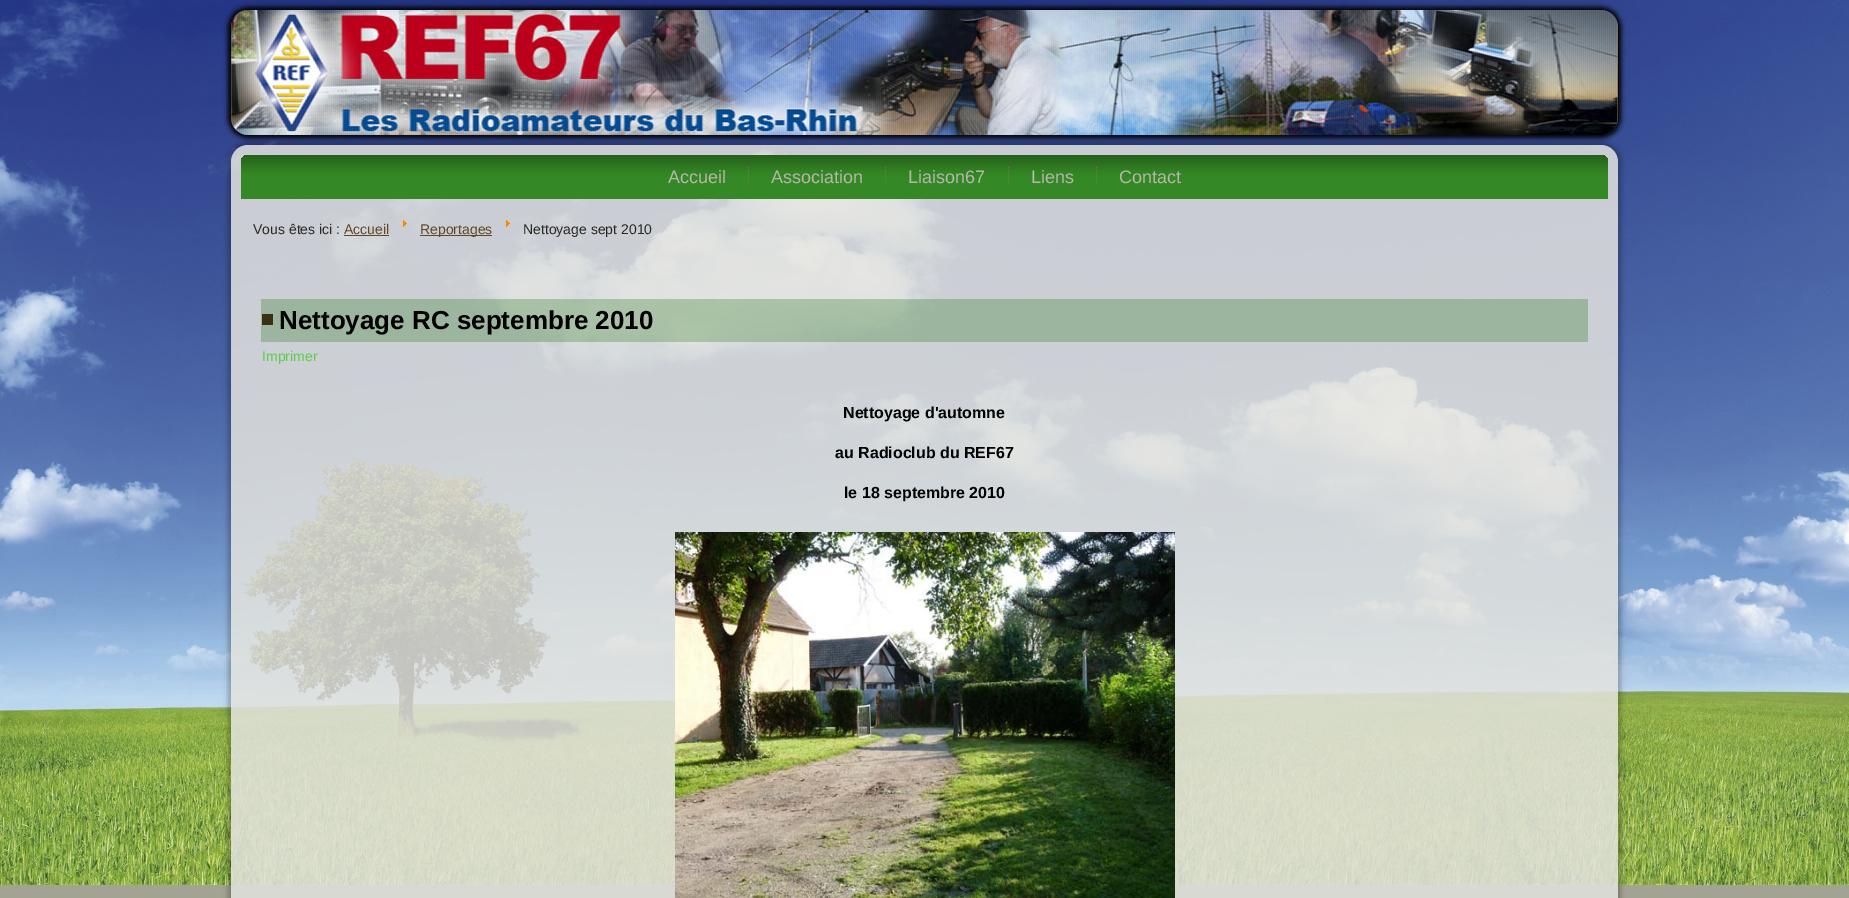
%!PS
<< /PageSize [1849 898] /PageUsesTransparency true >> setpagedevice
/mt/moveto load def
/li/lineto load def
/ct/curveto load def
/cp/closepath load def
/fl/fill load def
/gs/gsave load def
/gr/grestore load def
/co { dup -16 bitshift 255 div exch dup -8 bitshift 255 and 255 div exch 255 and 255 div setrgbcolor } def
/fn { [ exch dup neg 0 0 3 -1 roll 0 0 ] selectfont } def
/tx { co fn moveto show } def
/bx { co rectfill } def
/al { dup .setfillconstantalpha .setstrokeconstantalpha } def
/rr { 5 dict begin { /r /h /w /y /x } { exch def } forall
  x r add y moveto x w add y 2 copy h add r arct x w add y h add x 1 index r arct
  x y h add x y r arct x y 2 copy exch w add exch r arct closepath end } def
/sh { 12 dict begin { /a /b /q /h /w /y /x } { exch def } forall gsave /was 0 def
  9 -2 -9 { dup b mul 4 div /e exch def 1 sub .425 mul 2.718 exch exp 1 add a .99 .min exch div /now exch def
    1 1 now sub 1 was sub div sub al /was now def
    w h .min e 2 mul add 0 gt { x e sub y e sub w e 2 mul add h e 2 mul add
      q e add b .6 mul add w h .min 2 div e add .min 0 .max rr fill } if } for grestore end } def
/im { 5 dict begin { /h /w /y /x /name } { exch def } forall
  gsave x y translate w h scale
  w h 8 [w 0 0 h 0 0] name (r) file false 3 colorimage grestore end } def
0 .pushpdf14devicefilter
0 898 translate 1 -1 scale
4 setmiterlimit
0 0 1849 898 16#A3A393 bx
(media/1.raw) 0 0 1849 885 im
16#000000 co
228 7 1393 131 20 2.5 1 sh
(media/2.raw) 231 10 1387 125 im
gs
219 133 mt 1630 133 li 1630 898 li 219 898 li cp 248 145 mt 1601 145 li 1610.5 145 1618 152.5 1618 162 ct 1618 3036 li 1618 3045.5 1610.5 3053 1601 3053 ct 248 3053 li 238.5 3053 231 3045.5 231 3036 ct 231 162 li 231 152.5 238.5 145 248 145 ct cp eoclip newpath
228 142 1393 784 20 2.5 .25 sh
gr
0.85 al
16#E3E3DE co
231 145 1387 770 17 rr fl
1 al
gs 248 155 mt 1601 155 li 1605 155 1608 158 1608 162 ct 1608 199 li 241 199 li 241 162 li 241 158 244 155 248 155 ct cp clip newpath
<< /ShadingType 2 /ColorSpace /DeviceRGB /Coords [925 155 925 199] /Extend [true true] /Function << /FunctionType 3 /Domain [0 1] /Functions [<< /FunctionType 2 /Domain [0 1] /C0 [.145 .376 .102] /C1 [.2 .518 .141] /N 1 >> << /FunctionType 2 /Domain [0 1] /C0 [.2 .518 .141] /C1 [.204 .533 .145] /N 1 >> << /FunctionType 2 /Domain [0 1] /C0 [.204 .533 .145] /C1 [.204 .533 .145] /N 1 >>] /Bounds [.4 .5] /Encode [0 1 0 1 0 1] >> >> shfill gr
(media/3.raw) 748 167 1 17 im
(media/3.raw) 885 167 1 17 im
(media/3.raw) 1008 167 1 17 im
(media/3.raw) 1096 167 1 17 im
344 235 45 1 16#604627 bx
(media/4.raw) 403 220 4 7 im
420 235 72 1 16#604627 bx
(media/5.raw) 506 220 4 7 im
0.3 al
261 299 1327 43 16#2E7821 bx
1 al
262 314 11 11 16#3A3018 bx
(media/6.raw) 675 532 500 366 im
(Accueil) 668 183 /LiberationSans-Regular 18 16#B6B6A9 tx
(Association) 771 183 /LiberationSans-Regular 18 16#B6B6A9 tx
(Liaison67) 908 183 /LiberationSans-Regular 18 16#B6B6A9 tx
(Liens) 1031 183 /LiberationSans-Regular 18 16#B6B6A9 tx
(Contact) 1119 183 /LiberationSans-Regular 18 16#B6B6A9 tx
(Vous êtes ici :) 253 234 /LiberationSans-Regular 14 16#282822 tx
(Accueil) 344 234 /LiberationSans-Regular 14 16#604627 tx
(Reportages) 420 234 /LiberationSans-Regular 14 16#604627 tx
(Nettoyage sept 2010) 523 234 /LiberationSans-Regular 14 16#282822 tx
(Nettoyage RC septembre 2010) 279 329 /LiberationSans-Bold 26 16#000000 tx
(Imprimer) 262 361 /LiberationSans-Regular 14 16#5BCD47 tx
(Nettoyage d'automne) 843 418 /LiberationSans-Bold 16 16#000000 tx
(au Radioclub du REF67) 835 458 /LiberationSans-Bold 16 16#000000 tx
(le 18 septembre 2010) 844 498 /LiberationSans-Bold 16 16#000000 tx
.poppdf14devicefilter showpage
